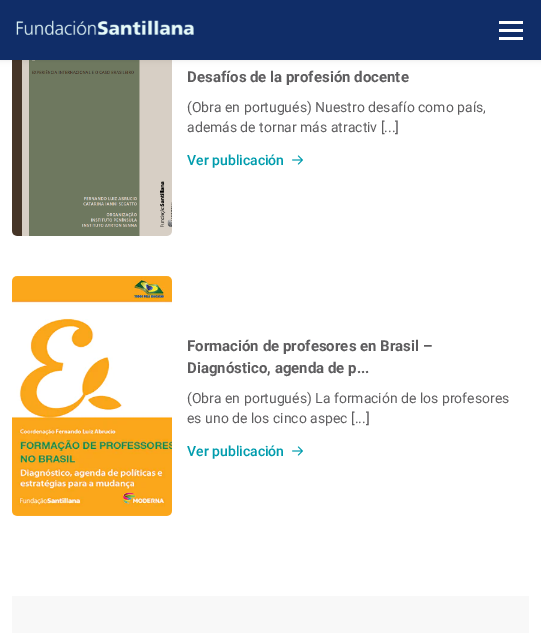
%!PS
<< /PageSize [541 633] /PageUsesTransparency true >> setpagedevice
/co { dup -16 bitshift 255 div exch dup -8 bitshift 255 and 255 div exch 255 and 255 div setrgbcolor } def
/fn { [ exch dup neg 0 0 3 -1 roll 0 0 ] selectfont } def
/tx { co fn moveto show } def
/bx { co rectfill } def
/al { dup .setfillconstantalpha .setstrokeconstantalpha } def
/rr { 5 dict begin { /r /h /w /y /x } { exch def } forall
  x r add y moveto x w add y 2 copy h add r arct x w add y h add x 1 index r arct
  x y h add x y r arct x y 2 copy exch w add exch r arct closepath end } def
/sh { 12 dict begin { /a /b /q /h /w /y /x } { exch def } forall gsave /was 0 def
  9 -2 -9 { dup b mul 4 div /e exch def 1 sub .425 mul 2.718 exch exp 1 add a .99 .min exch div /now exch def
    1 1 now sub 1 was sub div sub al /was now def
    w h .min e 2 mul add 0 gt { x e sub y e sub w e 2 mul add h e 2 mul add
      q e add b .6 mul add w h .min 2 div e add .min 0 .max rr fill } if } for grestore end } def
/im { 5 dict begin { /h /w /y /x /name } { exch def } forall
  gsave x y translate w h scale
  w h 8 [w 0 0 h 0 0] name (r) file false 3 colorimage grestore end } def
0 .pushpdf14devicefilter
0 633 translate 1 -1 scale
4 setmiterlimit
0 0 541 633 16#FFFFFF bx
(media/2.raw) 12 60 160 176 im
16#000000 co
0 0 541 60 0 3 .1 sh
0 0 541 60 16#102D68 bx
(media/1.raw) 16 20 178 15 im
499 21 24 3 16#FFFFFF bx
499 29 24 3 16#FFFFFF bx
499 37 24 3 16#FFFFFF bx
(media/3.raw) 292 155 11 10 im
(media/4.raw) 12 276 160 240 im
(media/3.raw) 292 446 11 10 im
12 596 517 37 16#F8F8F8 bx
(Desafíos de la profesión docente) 187 82 /Roboto-Bold 15 16#5E5D5F tx
(\(Obra en portugués\) Nuestro desafío como país,) 187 112 /Roboto-Regular 14 16#5E5D5F tx
(además de tornar más atractiv [...]) 187 132 /Roboto-Regular 14 16#5E5D5F tx
(Ver publicación) 187 165 /Roboto-Medium 14 16#009CAD tx
(Formación de profesores en Brasil –) 187 351 /Roboto-Bold 15 16#5E5D5F tx
(Diagnóstico, agenda de p...) 187 373 /Roboto-Bold 15 16#5E5D5F tx
(\(Obra en portugués\) La formación de los profesores) 187 403 /Roboto-Regular 14 16#5E5D5F tx
(es uno de los cinco aspec [...]) 187 423 /Roboto-Regular 14 16#5E5D5F tx
(Ver publicación) 187 456 /Roboto-Medium 14 16#009CAD tx
.poppdf14devicefilter showpage
